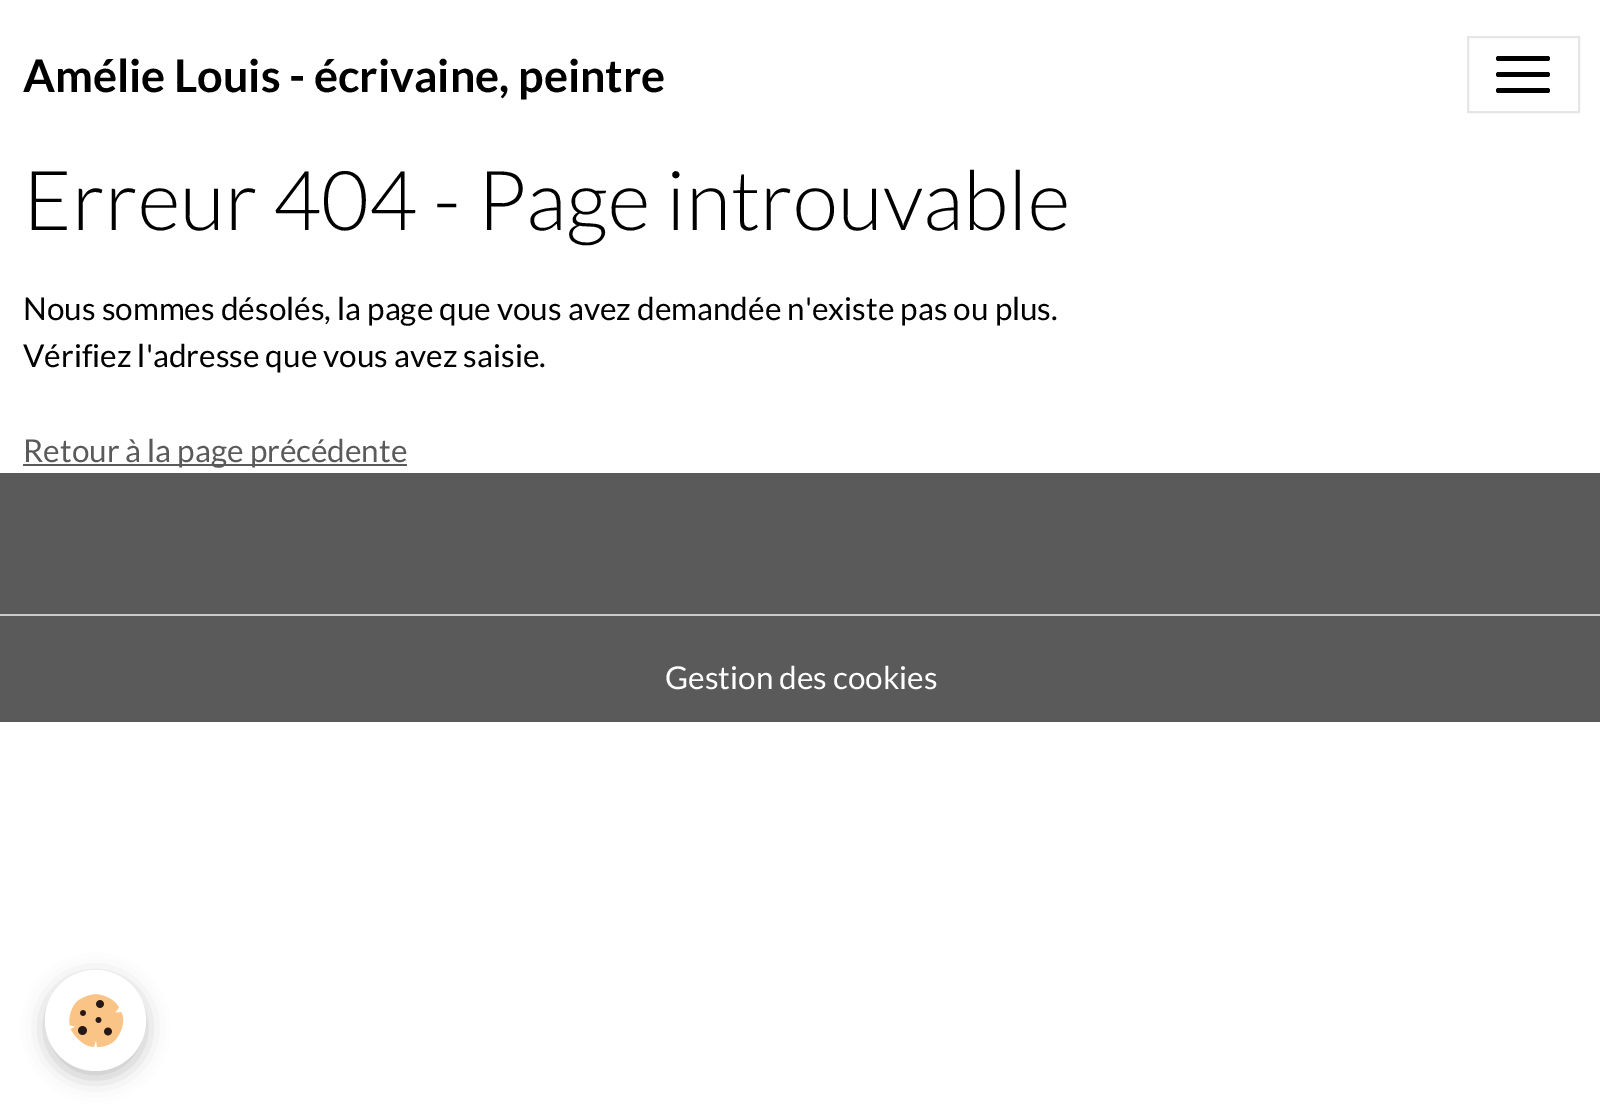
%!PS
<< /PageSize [1600 1112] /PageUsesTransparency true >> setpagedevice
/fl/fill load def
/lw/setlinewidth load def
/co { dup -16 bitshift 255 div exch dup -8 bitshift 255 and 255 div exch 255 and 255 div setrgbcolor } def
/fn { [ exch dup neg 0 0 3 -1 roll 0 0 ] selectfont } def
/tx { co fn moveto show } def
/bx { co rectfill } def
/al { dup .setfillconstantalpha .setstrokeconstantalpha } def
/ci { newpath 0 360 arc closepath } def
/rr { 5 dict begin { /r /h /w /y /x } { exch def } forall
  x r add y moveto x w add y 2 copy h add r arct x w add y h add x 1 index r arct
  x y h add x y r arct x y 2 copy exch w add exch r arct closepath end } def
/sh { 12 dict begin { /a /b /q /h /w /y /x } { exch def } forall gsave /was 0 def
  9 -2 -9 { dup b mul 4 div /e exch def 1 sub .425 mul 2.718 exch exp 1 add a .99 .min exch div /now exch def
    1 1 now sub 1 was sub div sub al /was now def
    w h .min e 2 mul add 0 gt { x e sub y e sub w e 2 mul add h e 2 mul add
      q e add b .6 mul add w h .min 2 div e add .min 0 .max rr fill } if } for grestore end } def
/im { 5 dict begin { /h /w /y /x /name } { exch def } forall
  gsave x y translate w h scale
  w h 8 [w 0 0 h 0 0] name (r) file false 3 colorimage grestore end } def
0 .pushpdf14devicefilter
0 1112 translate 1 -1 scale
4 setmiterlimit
0 0 1600 1112 16#FFFFFF bx
16#E6E6E6 co
2 lw
1468 37 111 75 rectstroke
16#000000 co
1496 56 54 5 2.5 rr fl
1496 72 54 5 2.5 rr fl
1496 88 54 5 2.5 rr fl
23 464 384 2 16#5A5A5A bx
0 473 1600 249 16#5A5A5A bx
0 614 1600 2 16#CCCCCC bx
16#000000 co
45 977 101 101 50.5 11 .24 sh
16#FFFFFF co
95.5 1020.5 50.5 ci fl
(media/1.raw) 69 994 55 54 im
(Amélie Louis - écrivaine, peintre) 23 92 /Lato-Bold 45 16#000000 tx
(Erreur 404 - Page introuvable) 23 230 /Lato-Light 82.75 16#000000 tx
(Nous sommes désolés, la page que vous avez demandée n'existe pas ou plus.) 23 320 /Lato-Regular 31.5 16#000000 tx
(Vérifiez l'adresse que vous avez saisie.) 23 367 /Lato-Regular 31.5 16#000000 tx
(Retour à la page précédente) 23 462 /Lato-Regular 31.5 16#5A5A5A tx
(Gestion des cookies) 665 689 /Lato-Regular 31.5 16#FFFFFF tx
.poppdf14devicefilter showpage
